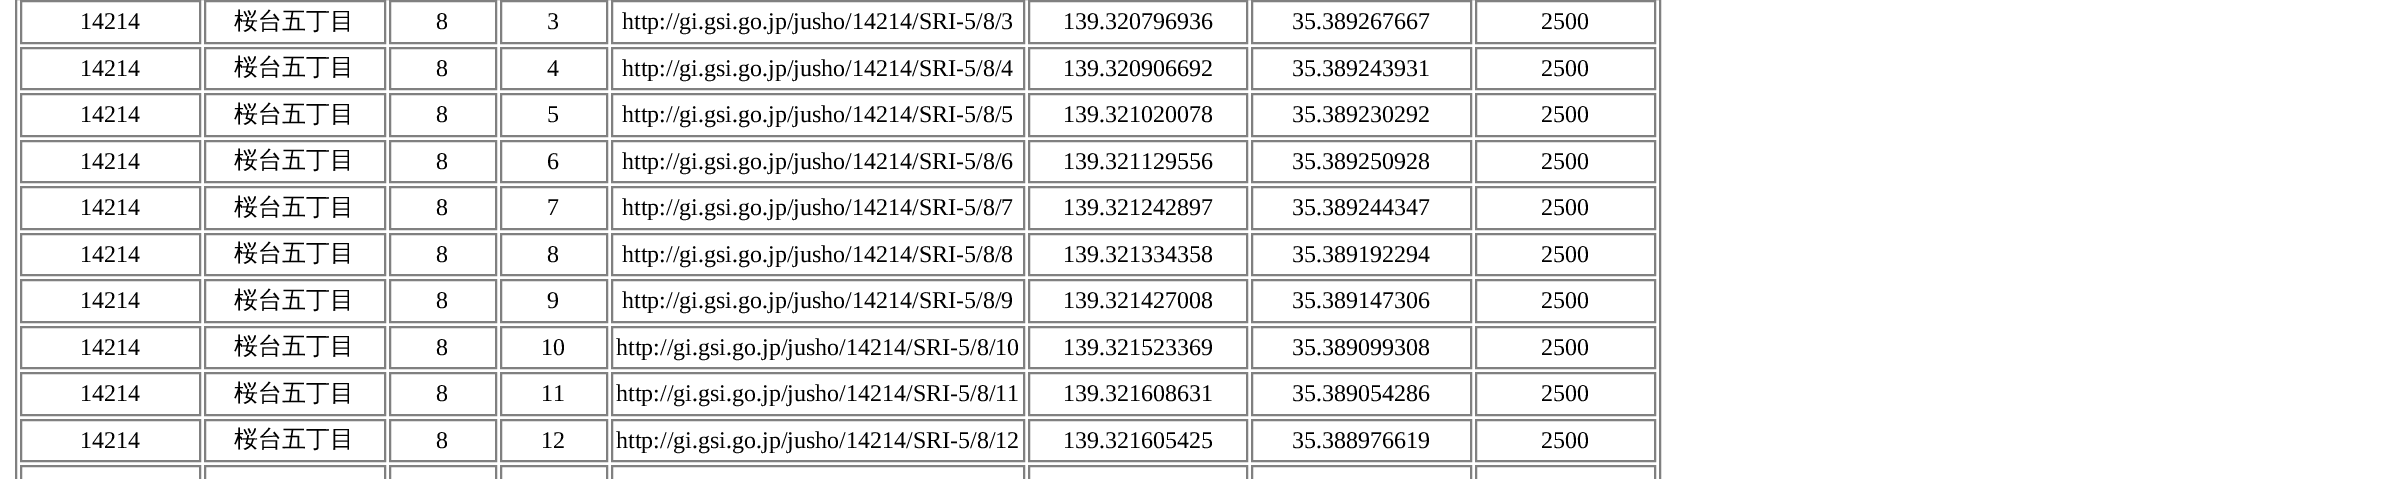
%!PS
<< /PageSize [2386 479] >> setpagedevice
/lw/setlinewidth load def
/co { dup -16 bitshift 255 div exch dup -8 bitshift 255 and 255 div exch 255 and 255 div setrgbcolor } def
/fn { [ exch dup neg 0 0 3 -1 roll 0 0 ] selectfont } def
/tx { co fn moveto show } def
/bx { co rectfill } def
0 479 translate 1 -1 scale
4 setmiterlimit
0 0 2386 479 16#FFFFFF bx
16#808080 co
2 lw
16 -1 1644 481 rectstroke
21 1 179 42 rectstroke
205 1 180 42 rectstroke
390 1 106 42 rectstroke
501 1 106 42 rectstroke
612 1 412 42 rectstroke
1029 1 218 42 rectstroke
1252 1 219 42 rectstroke
1476 1 179 42 rectstroke
21 48 179 41 rectstroke
205 48 180 41 rectstroke
390 48 106 41 rectstroke
501 48 106 41 rectstroke
612 48 412 41 rectstroke
1029 48 218 41 rectstroke
1252 48 219 41 rectstroke
1476 48 179 41 rectstroke
21 94 179 42 rectstroke
205 94 180 42 rectstroke
390 94 106 42 rectstroke
501 94 106 42 rectstroke
612 94 412 42 rectstroke
1029 94 218 42 rectstroke
1252 94 219 42 rectstroke
1476 94 179 42 rectstroke
21 141 179 41 rectstroke
205 141 180 41 rectstroke
390 141 106 41 rectstroke
501 141 106 41 rectstroke
612 141 412 41 rectstroke
1029 141 218 41 rectstroke
1252 141 219 41 rectstroke
1476 141 179 41 rectstroke
21 187 179 42 rectstroke
205 187 180 42 rectstroke
390 187 106 42 rectstroke
501 187 106 42 rectstroke
612 187 412 42 rectstroke
1029 187 218 42 rectstroke
1252 187 219 42 rectstroke
1476 187 179 42 rectstroke
21 234 179 41 rectstroke
205 234 180 41 rectstroke
390 234 106 41 rectstroke
501 234 106 41 rectstroke
612 234 412 41 rectstroke
1029 234 218 41 rectstroke
1252 234 219 41 rectstroke
1476 234 179 41 rectstroke
21 280 179 42 rectstroke
205 280 180 42 rectstroke
390 280 106 42 rectstroke
501 280 106 42 rectstroke
612 280 412 42 rectstroke
1029 280 218 42 rectstroke
1252 280 219 42 rectstroke
1476 280 179 42 rectstroke
21 327 179 41 rectstroke
205 327 180 41 rectstroke
390 327 106 41 rectstroke
501 327 106 41 rectstroke
612 327 412 41 rectstroke
1029 327 218 41 rectstroke
1252 327 219 41 rectstroke
1476 327 179 41 rectstroke
21 373 179 42 rectstroke
205 373 180 42 rectstroke
390 373 106 42 rectstroke
501 373 106 42 rectstroke
612 373 412 42 rectstroke
1029 373 218 42 rectstroke
1252 373 219 42 rectstroke
1476 373 179 42 rectstroke
21 420 179 41 rectstroke
205 420 180 41 rectstroke
390 420 106 41 rectstroke
501 420 106 41 rectstroke
612 420 412 41 rectstroke
1029 420 218 41 rectstroke
1252 420 219 41 rectstroke
1476 420 179 41 rectstroke
21 466 179 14 rectstroke
205 466 180 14 rectstroke
390 466 106 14 rectstroke
501 466 106 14 rectstroke
612 466 412 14 rectstroke
1029 466 218 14 rectstroke
1252 466 219 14 rectstroke
1476 466 179 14 rectstroke
(14214) 80 29 /LiberationSerif-Regular 24 16#000000 tx
(桜台五丁目) 234 29 /WenQuanYiZenHei-Medium 24 16#000000 tx
(8) 436 29 /LiberationSerif-Regular 24 16#000000 tx
(3) 547 29 /LiberationSerif-Regular 24 16#000000 tx
(http://gi.gsi.go.jp/jusho/14214/SRI-5/8/3) 622 29 /LiberationSerif-Regular 24 16#000000 tx
(139.320796936) 1063 29 /LiberationSerif-Regular 24 16#000000 tx
(35.389267667) 1292 29 /LiberationSerif-Regular 24 16#000000 tx
(2500) 1541 29 /LiberationSerif-Regular 24 16#000000 tx
(14214) 80 76 /LiberationSerif-Regular 24 16#000000 tx
(桜台五丁目) 234 75 /WenQuanYiZenHei-Medium 24 16#000000 tx
(8) 436 76 /LiberationSerif-Regular 24 16#000000 tx
(4) 547 76 /LiberationSerif-Regular 24 16#000000 tx
(http://gi.gsi.go.jp/jusho/14214/SRI-5/8/4) 622 76 /LiberationSerif-Regular 24 16#000000 tx
(139.320906692) 1063 76 /LiberationSerif-Regular 24 16#000000 tx
(35.389243931) 1292 76 /LiberationSerif-Regular 24 16#000000 tx
(2500) 1541 76 /LiberationSerif-Regular 24 16#000000 tx
(14214) 80 122 /LiberationSerif-Regular 24 16#000000 tx
(桜台五丁目) 234 122 /WenQuanYiZenHei-Medium 24 16#000000 tx
(8) 436 122 /LiberationSerif-Regular 24 16#000000 tx
(5) 547 122 /LiberationSerif-Regular 24 16#000000 tx
(http://gi.gsi.go.jp/jusho/14214/SRI-5/8/5) 622 122 /LiberationSerif-Regular 24 16#000000 tx
(139.321020078) 1063 122 /LiberationSerif-Regular 24 16#000000 tx
(35.389230292) 1292 122 /LiberationSerif-Regular 24 16#000000 tx
(2500) 1541 122 /LiberationSerif-Regular 24 16#000000 tx
(14214) 80 169 /LiberationSerif-Regular 24 16#000000 tx
(桜台五丁目) 234 168 /WenQuanYiZenHei-Medium 24 16#000000 tx
(8) 436 169 /LiberationSerif-Regular 24 16#000000 tx
(6) 547 169 /LiberationSerif-Regular 24 16#000000 tx
(http://gi.gsi.go.jp/jusho/14214/SRI-5/8/6) 622 169 /LiberationSerif-Regular 24 16#000000 tx
(139.321129556) 1063 169 /LiberationSerif-Regular 24 16#000000 tx
(35.389250928) 1292 169 /LiberationSerif-Regular 24 16#000000 tx
(2500) 1541 169 /LiberationSerif-Regular 24 16#000000 tx
(14214) 80 215 /LiberationSerif-Regular 24 16#000000 tx
(桜台五丁目) 234 215 /WenQuanYiZenHei-Medium 24 16#000000 tx
(8) 436 215 /LiberationSerif-Regular 24 16#000000 tx
(7) 547 215 /LiberationSerif-Regular 24 16#000000 tx
(http://gi.gsi.go.jp/jusho/14214/SRI-5/8/7) 622 215 /LiberationSerif-Regular 24 16#000000 tx
(139.321242897) 1063 215 /LiberationSerif-Regular 24 16#000000 tx
(35.389244347) 1292 215 /LiberationSerif-Regular 24 16#000000 tx
(2500) 1541 215 /LiberationSerif-Regular 24 16#000000 tx
(14214) 80 262 /LiberationSerif-Regular 24 16#000000 tx
(桜台五丁目) 234 261 /WenQuanYiZenHei-Medium 24 16#000000 tx
(8) 436 262 /LiberationSerif-Regular 24 16#000000 tx
(8) 547 262 /LiberationSerif-Regular 24 16#000000 tx
(http://gi.gsi.go.jp/jusho/14214/SRI-5/8/8) 622 262 /LiberationSerif-Regular 24 16#000000 tx
(139.321334358) 1063 262 /LiberationSerif-Regular 24 16#000000 tx
(35.389192294) 1292 262 /LiberationSerif-Regular 24 16#000000 tx
(2500) 1541 262 /LiberationSerif-Regular 24 16#000000 tx
(14214) 80 308 /LiberationSerif-Regular 24 16#000000 tx
(桜台五丁目) 234 308 /WenQuanYiZenHei-Medium 24 16#000000 tx
(8) 436 308 /LiberationSerif-Regular 24 16#000000 tx
(9) 547 308 /LiberationSerif-Regular 24 16#000000 tx
(http://gi.gsi.go.jp/jusho/14214/SRI-5/8/9) 622 308 /LiberationSerif-Regular 24 16#000000 tx
(139.321427008) 1063 308 /LiberationSerif-Regular 24 16#000000 tx
(35.389147306) 1292 308 /LiberationSerif-Regular 24 16#000000 tx
(2500) 1541 308 /LiberationSerif-Regular 24 16#000000 tx
(14214) 80 355 /LiberationSerif-Regular 24 16#000000 tx
(桜台五丁目) 234 354 /WenQuanYiZenHei-Medium 24 16#000000 tx
(8) 436 355 /LiberationSerif-Regular 24 16#000000 tx
(10) 541 355 /LiberationSerif-Regular 24 16#000000 tx
(http://gi.gsi.go.jp/jusho/14214/SRI-5/8/10) 616 355 /LiberationSerif-Regular 24 16#000000 tx
(139.321523369) 1063 355 /LiberationSerif-Regular 24 16#000000 tx
(35.389099308) 1292 355 /LiberationSerif-Regular 24 16#000000 tx
(2500) 1541 355 /LiberationSerif-Regular 24 16#000000 tx
(14214) 80 401 /LiberationSerif-Regular 24 16#000000 tx
(桜台五丁目) 234 401 /WenQuanYiZenHei-Medium 24 16#000000 tx
(8) 436 401 /LiberationSerif-Regular 24 16#000000 tx
(11) 541 401 /LiberationSerif-Regular 24 16#000000 tx
(http://gi.gsi.go.jp/jusho/14214/SRI-5/8/11) 616 401 /LiberationSerif-Regular 24 16#000000 tx
(139.321608631) 1063 401 /LiberationSerif-Regular 24 16#000000 tx
(35.389054286) 1292 401 /LiberationSerif-Regular 24 16#000000 tx
(2500) 1541 401 /LiberationSerif-Regular 24 16#000000 tx
(14214) 80 448 /LiberationSerif-Regular 24 16#000000 tx
(桜台五丁目) 234 447 /WenQuanYiZenHei-Medium 24 16#000000 tx
(8) 436 448 /LiberationSerif-Regular 24 16#000000 tx
(12) 541 448 /LiberationSerif-Regular 24 16#000000 tx
(http://gi.gsi.go.jp/jusho/14214/SRI-5/8/12) 616 448 /LiberationSerif-Regular 24 16#000000 tx
(139.321605425) 1063 448 /LiberationSerif-Regular 24 16#000000 tx
(35.388976619) 1292 448 /LiberationSerif-Regular 24 16#000000 tx
(2500) 1541 448 /LiberationSerif-Regular 24 16#000000 tx
showpage
